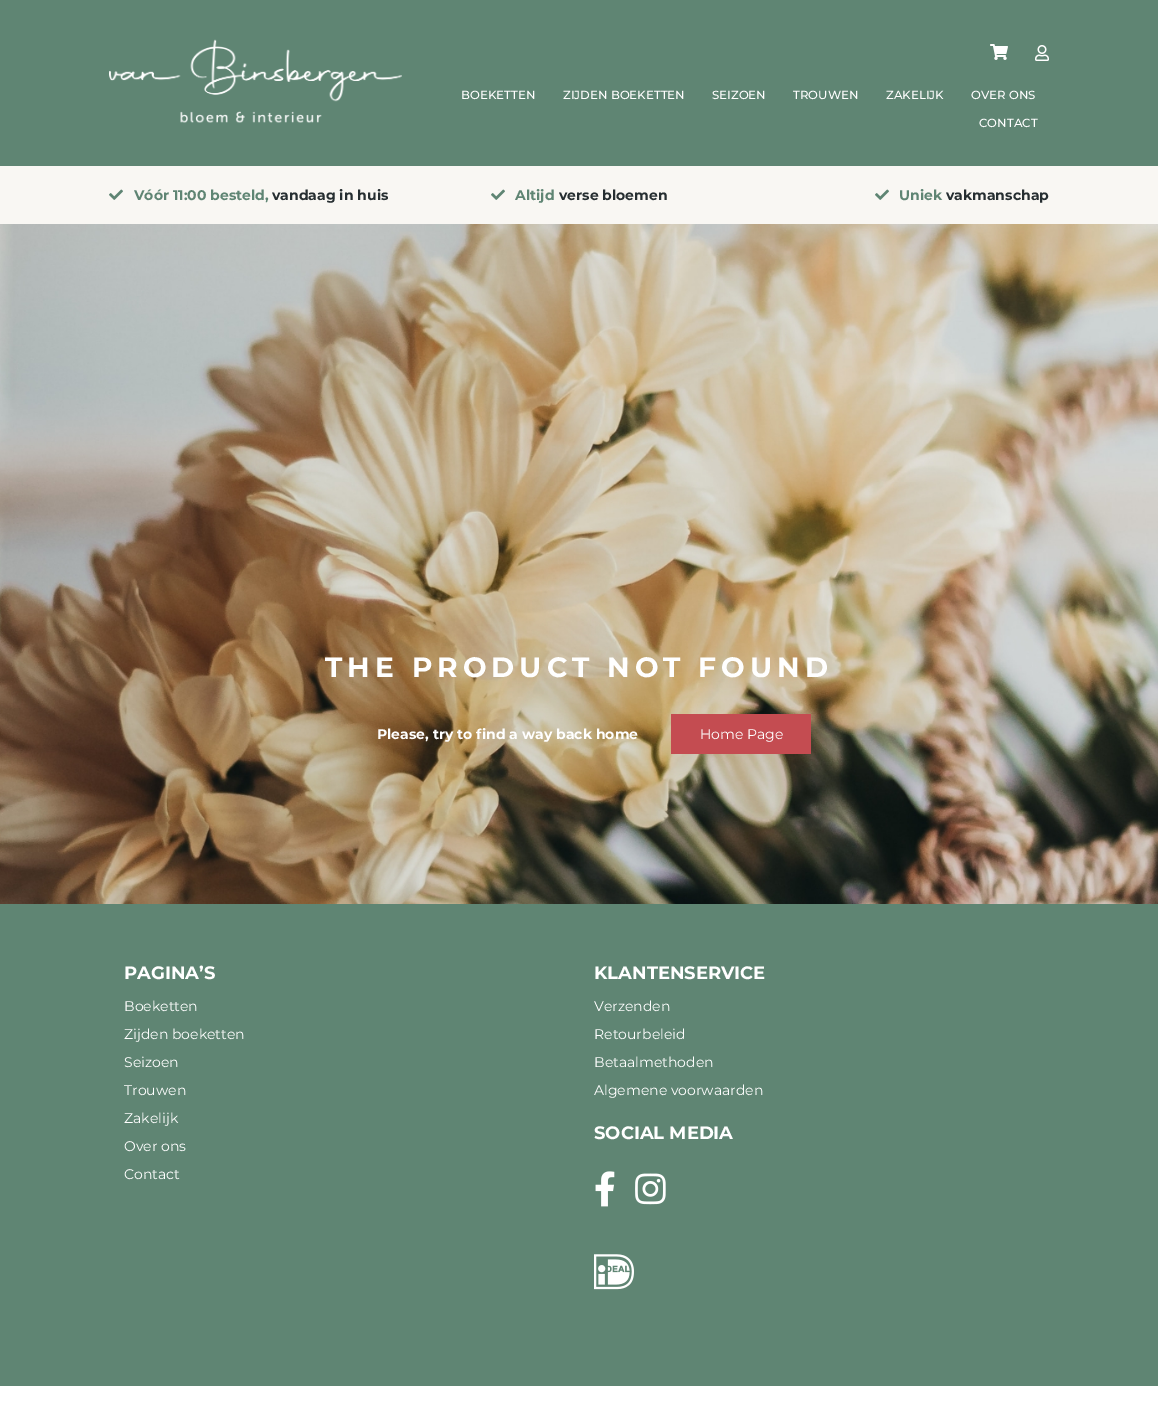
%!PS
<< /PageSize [1158 1409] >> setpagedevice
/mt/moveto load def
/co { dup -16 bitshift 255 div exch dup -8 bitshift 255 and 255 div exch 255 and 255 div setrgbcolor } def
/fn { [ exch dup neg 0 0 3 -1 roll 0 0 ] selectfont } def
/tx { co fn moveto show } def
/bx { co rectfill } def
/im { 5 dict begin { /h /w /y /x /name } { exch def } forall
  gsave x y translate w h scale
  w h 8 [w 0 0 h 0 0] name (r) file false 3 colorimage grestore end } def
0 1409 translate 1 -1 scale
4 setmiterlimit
0 0 1158 1409 16#FFFFFF bx
0 0 1158 166 16#5F8573 bx
(media/1.raw) 109 39 293 84 im
(media/2.raw) 990 44 18 16 im
(media/3.raw) 1035 45 14 16 im
0 166 1158 58 16#F9F7F3 bx
(media/4.raw) 109 189 14 11 im
(media/4.raw) 491 189 14 11 im
(media/4.raw) 875 189 14 11 im
(media/5.raw) 0 224 1158 680 im
671 714 140 40 16#C44C51 bx
0 904 1158 482 16#5F8573 bx
(media/6.raw) 595 1171 20 36 im
(media/7.raw) 635 1173 31 32 im
(media/8.raw) 594 1254 40 36 im
(BOEKETTEN) 461 99 /Montserrat-Medium 11.75 16#FFFFFF tx
(ZIJDEN BOEKETTEN) 563 99 /Montserrat-Medium 11.75 16#FFFFFF tx
(SEIZOEN) 712 99 /Montserrat-Medium 11.75 16#FFFFFF tx
(TROUWEN) 793 99 /Montserrat-Medium 11.75 16#FFFFFF tx
(ZAKELIJK) 886 99 /Montserrat-Medium 11.75 16#FFFFFF tx
(OVER ONS) 971 99 /Montserrat-Medium 11.75 16#FFFFFF tx
(CONTACT) 979 127 /Montserrat-Medium 11.75 16#FFFFFF tx
(Vóór 11:00 besteld,) 134 200 /Montserrat-Bold 14 16#5F8573 tx
(vandaag in huis) 272 200 /Montserrat-Bold 14 16#262E31 tx
(Altijd) 515 200 /Montserrat-Bold 14 16#5F8573 tx
(verse bloemen) 559 200 /Montserrat-Bold 14 16#262E31 tx
(Uniek) 899 200 /Montserrat-Bold 14 16#5F8573 tx
(vakmanschap) 946 200 /Montserrat-Bold 14 16#262E31 tx
/Montserrat-Bold 28 fn
16#FFFFFF co
325 677 mt 5 0 (THE PRODUCT NOT FOUND) ashow
(Please, try to find a way back home) 377 739 /Montserrat-Bold 14 16#FFFFFF tx
(Home Page) 700 739 /Montserrat-Regular 14 16#FFFFFF tx
(PAGINA’S) 124 979 /Montserrat-Bold 18 16#FFFFFF tx
(Boeketten) 124 1011 /Montserrat-Regular 14 16#FFFFFF tx
(Zijden boeketten) 124 1039 /Montserrat-Regular 14 16#FFFFFF tx
(Seizoen) 124 1067 /Montserrat-Regular 14 16#FFFFFF tx
(Trouwen) 124 1095 /Montserrat-Regular 14 16#FFFFFF tx
(Zakelijk) 124 1123 /Montserrat-Regular 14 16#FFFFFF tx
(Over ons) 124 1151 /Montserrat-Regular 14 16#FFFFFF tx
(Contact) 124 1179 /Montserrat-Regular 14 16#FFFFFF tx
(KLANTENSERVICE) 594 979 /Montserrat-Bold 18 16#FFFFFF tx
(Verzenden) 594 1011 /Montserrat-Regular 14 16#FFFFFF tx
(Retourbeleid) 594 1039 /Montserrat-Regular 14 16#FFFFFF tx
(Betaalmethoden) 594 1067 /Montserrat-Regular 14 16#FFFFFF tx
(Algemene voorwaarden) 594 1095 /Montserrat-Regular 14 16#FFFFFF tx
(SOCIAL MEDIA) 594 1139 /Montserrat-Bold 18 16#FFFFFF tx
showpage
